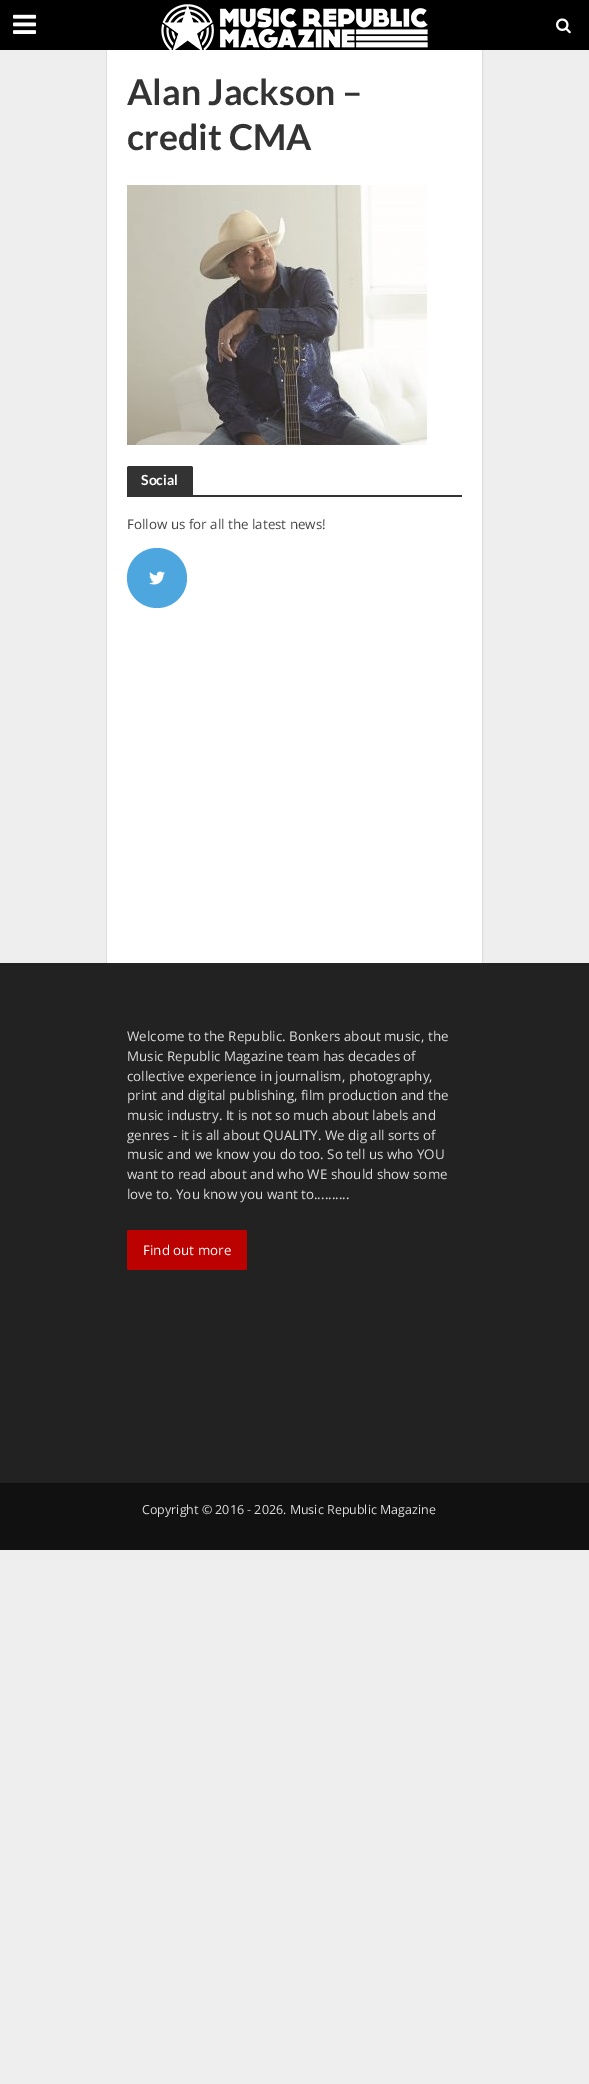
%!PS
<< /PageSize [589 2084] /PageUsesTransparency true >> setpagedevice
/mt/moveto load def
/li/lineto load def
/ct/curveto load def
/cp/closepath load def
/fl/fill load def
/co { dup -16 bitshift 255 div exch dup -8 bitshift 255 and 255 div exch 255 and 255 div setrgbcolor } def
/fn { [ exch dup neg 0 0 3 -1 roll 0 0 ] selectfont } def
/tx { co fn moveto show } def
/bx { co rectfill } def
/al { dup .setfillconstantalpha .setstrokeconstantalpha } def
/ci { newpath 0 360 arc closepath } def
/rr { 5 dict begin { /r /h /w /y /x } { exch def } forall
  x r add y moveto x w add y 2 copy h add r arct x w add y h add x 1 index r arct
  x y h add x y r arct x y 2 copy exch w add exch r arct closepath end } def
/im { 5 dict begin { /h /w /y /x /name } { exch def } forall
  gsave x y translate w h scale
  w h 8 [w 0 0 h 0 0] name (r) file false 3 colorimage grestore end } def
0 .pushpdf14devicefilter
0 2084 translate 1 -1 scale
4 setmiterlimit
0 0 589 2084 16#EEEEEE bx
0 963 589 520 16#222222 bx
0.1 al
16#444444 co
106.5 49.5 376 914 rectstroke
1 al
0 0 589 50 16#000000 bx
(media/1.raw) 13 14 24 20 im
(media/2.raw) 161 4 267 46 im
(media/3.raw) 556 18 15 16 im
107 50 375 913 16#FFFFFF bx
(media/4.raw) 127 185 300 260 im
16#333333 co
129 466 mt 191 466 li 192 466 193 467 193 468 ct 193 495 li 127 495 li 127 468 li 127 467 128 466 129 466 ct cp fl
127 495 335 2 16#333333 bx
16#4DA7DE co
157 578 30 ci fl
(media/5.raw) 149 571 16 14 im
16#BC0101 co
127 1230 120 40 2 rr fl
0 1483 589 67 16#111111 bx
(Alan Jackson –) 127 105 /Lato-Bold 35.75 16#333333 tx
(credit CMA) 127 150 /Lato-Bold 35.75 16#333333 tx
(Social) 141 485 /Lato-Bold 14 16#FFFFFF tx
(Follow us for all the latest news!) 127 529 /OpenSans-Regular 13.4 16#444444 tx
(Welcome to the Republic. Bonkers about music, the) 127 1041 /OpenSans-Regular 13.4 16#DDDDDD tx
(Music Republic Magazine team has decades of) 127 1061 /OpenSans-Regular 13.4 16#DDDDDD tx
(collective experience in journalism, photography,) 127 1081 /OpenSans-Regular 13.4 16#DDDDDD tx
(print and digital publishing, film production and the) 127 1100 /OpenSans-Regular 13.4 16#DDDDDD tx
(music industry. It is not so much about labels and) 127 1120 /OpenSans-Regular 13.4 16#DDDDDD tx
(genres - it is all about QUALITY. We dig all sorts of) 127 1140 /OpenSans-Regular 13.4 16#DDDDDD tx
(music and we know you do too. So tell us who YOU) 127 1159 /OpenSans-Regular 13.4 16#DDDDDD tx
(want to read about and who WE should show some) 127 1179 /OpenSans-Regular 13.4 16#DDDDDD tx
(love to. You know you want to..........) 127 1199 /OpenSans-Regular 13.4 16#DDDDDD tx
(Find out more) 143 1255 /OpenSans-Regular 13.4 16#FFFFFF tx
(Copyright © 2016 - 2026. Music Republic Magazine) 142 1514 /OpenSans-Regular 12.5 16#DDDDDD tx
.poppdf14devicefilter showpage
